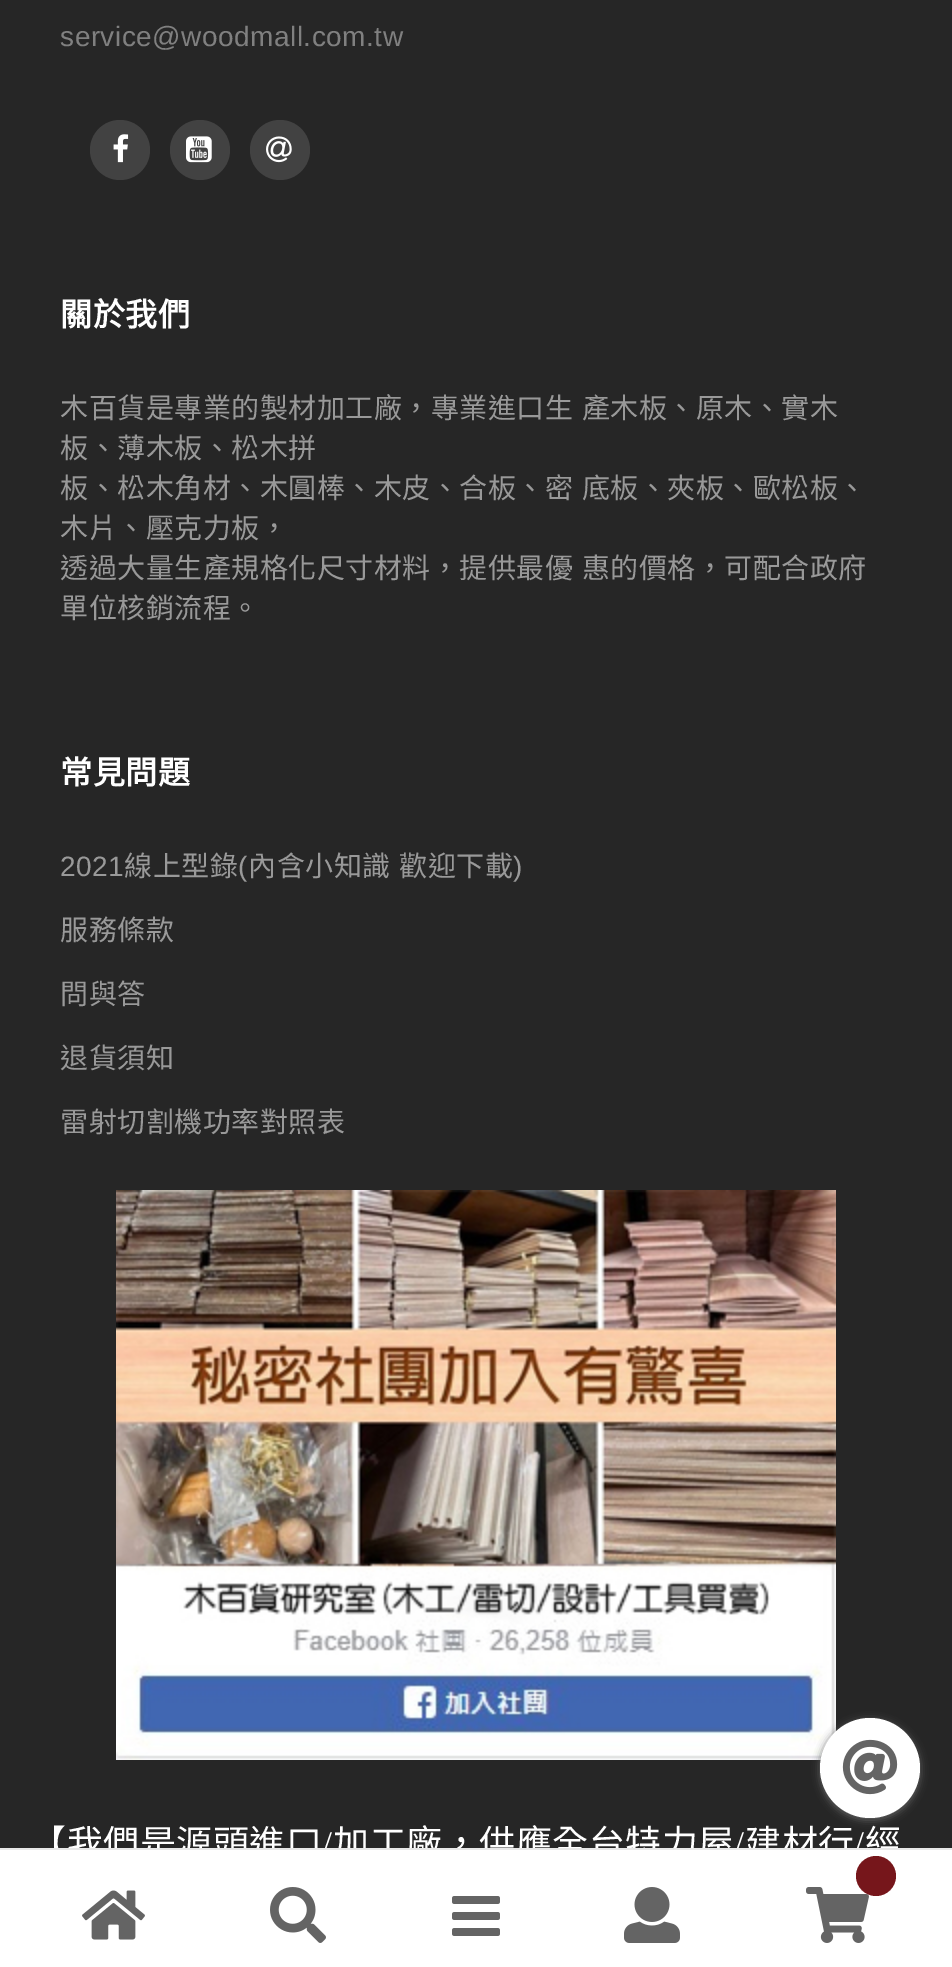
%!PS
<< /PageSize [952 1967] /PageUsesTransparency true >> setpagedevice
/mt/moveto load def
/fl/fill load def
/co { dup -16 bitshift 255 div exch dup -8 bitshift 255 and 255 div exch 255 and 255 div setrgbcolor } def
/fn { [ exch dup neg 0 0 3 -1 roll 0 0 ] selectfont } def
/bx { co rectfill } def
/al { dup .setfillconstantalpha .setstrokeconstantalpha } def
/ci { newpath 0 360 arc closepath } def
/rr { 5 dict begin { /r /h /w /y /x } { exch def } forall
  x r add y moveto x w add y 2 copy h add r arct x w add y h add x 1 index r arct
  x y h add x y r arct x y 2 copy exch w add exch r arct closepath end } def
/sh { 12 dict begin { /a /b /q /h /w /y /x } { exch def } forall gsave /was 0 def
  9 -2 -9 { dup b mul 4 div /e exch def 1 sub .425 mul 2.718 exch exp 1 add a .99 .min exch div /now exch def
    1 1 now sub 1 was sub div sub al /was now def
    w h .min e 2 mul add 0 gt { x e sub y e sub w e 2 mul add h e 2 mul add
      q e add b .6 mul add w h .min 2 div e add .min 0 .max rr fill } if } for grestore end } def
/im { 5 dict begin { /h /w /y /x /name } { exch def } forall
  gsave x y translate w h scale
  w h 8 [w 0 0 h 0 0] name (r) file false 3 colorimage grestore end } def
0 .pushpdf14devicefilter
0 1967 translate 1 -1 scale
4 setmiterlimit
0 0 952 1967 16#262626 bx
16#424242 co
120 150 30 ci fl
(media/1.raw) 113 134 16 29 im
200 150 30 ci fl
(media/2.raw) 186 136 26 27 im
280 150 30 ci fl
(media/3.raw) 266 136 26 27 im
(media/4.raw) 116 1190 720 570 im
16#646464 co
820 1720 100 100 50 4 1 sh
16#FFFFFF co
870 1768 50 ci fl
(media/5.raw) 842 1739 56 56 im
0 1850 952 117 16#FFFFFF bx
(media/6.raw) 82 1890 63 50 im
(media/7.raw) 270 1887 56 56 im
(media/8.raw) 452 1896 48 40 im
(media/9.raw) 624 1887 56 56 im
(media/10.raw) 806 1887 63 56 im
/LiberationSans-Regular 28 fn
16#808080 co
60 46 mt .5 0 (service@woodmall.com.tw) ashow
/NotoSansCJKTC-Bold 32 fn
16#FFFFFF co
60 326 mt .5 0 (關於我們) ashow
/NotoSansCJKTC-Regular 28 fn
16#999999 co
60 418 mt 2 0 32 .5 0 (木百貨是專業的製材加工廠，專業進口生 產木板、原木、實木) awidthshow
60 458 mt .5 0 (板、薄木板、松木拼) ashow
60 498 mt 2 0 32 .5 0 (板、松木角材、木圓棒、木皮、合板、密 底板、夾板、歐松板、) awidthshow
60 538 mt .5 0 (木片、壓克力板，) ashow
60 578 mt 2 0 32 .5 0 (透過大量生產規格化尺寸材料，提供最優 惠的價格，可配合政府) awidthshow
60 618 mt .5 0 (單位核銷流程。) ashow
/NotoSansCJKTC-Bold 32 fn
16#FFFFFF co
60 784 mt .5 0 (常見問題) ashow
/LiberationSans-Regular 28 fn
16#999999 co
60 876 mt .5 0 (2021) ashow
/NotoSansCJKTC-Regular 28 fn
124 876 mt .5 0 (線上型錄) ashow
/LiberationSans-Regular 28 fn
238 876 mt .5 0 (\() ashow
/NotoSansCJKTC-Regular 28 fn
248 876 mt 2 0 32 .5 0 (內含小知識 歡迎下載) awidthshow
/LiberationSans-Regular 28 fn
513 876 mt .5 0 (\)) ashow
/NotoSansCJKTC-Regular 28 fn
60 940 mt .5 0 (服務條款) ashow
60 1004 mt .5 0 (問與答) ashow
60 1068 mt .5 0 (退貨須知) ashow
60 1132 mt .5 0 (雷射切割機功率對照表) ashow
/NotoSansCJKTC-Regular 36 fn
16#FFFFFF co
30 1856 mt .5 0 (【我們是源頭進口) ashow
/LiberationSerif-Regular 36 fn
322 1856 mt .5 0 (/) ashow
/NotoSansCJKTC-Regular 36 fn
333 1856 mt .5 0 (加工廠，供應全台特力屋) ashow
/LiberationSerif-Regular 36 fn
734 1856 mt .5 0 (/) ashow
/NotoSansCJKTC-Regular 36 fn
745 1856 mt .5 0 (建材行) ashow
/LiberationSerif-Regular 36 fn
854 1856 mt .5 0 (/) ashow
/NotoSansCJKTC-Regular 36 fn
865 1856 mt .5 0 (經) ashow
0 1848 952 2 16#E8E8E8 bx
16#76161B co
876 1876 20 ci fl
.poppdf14devicefilter showpage
